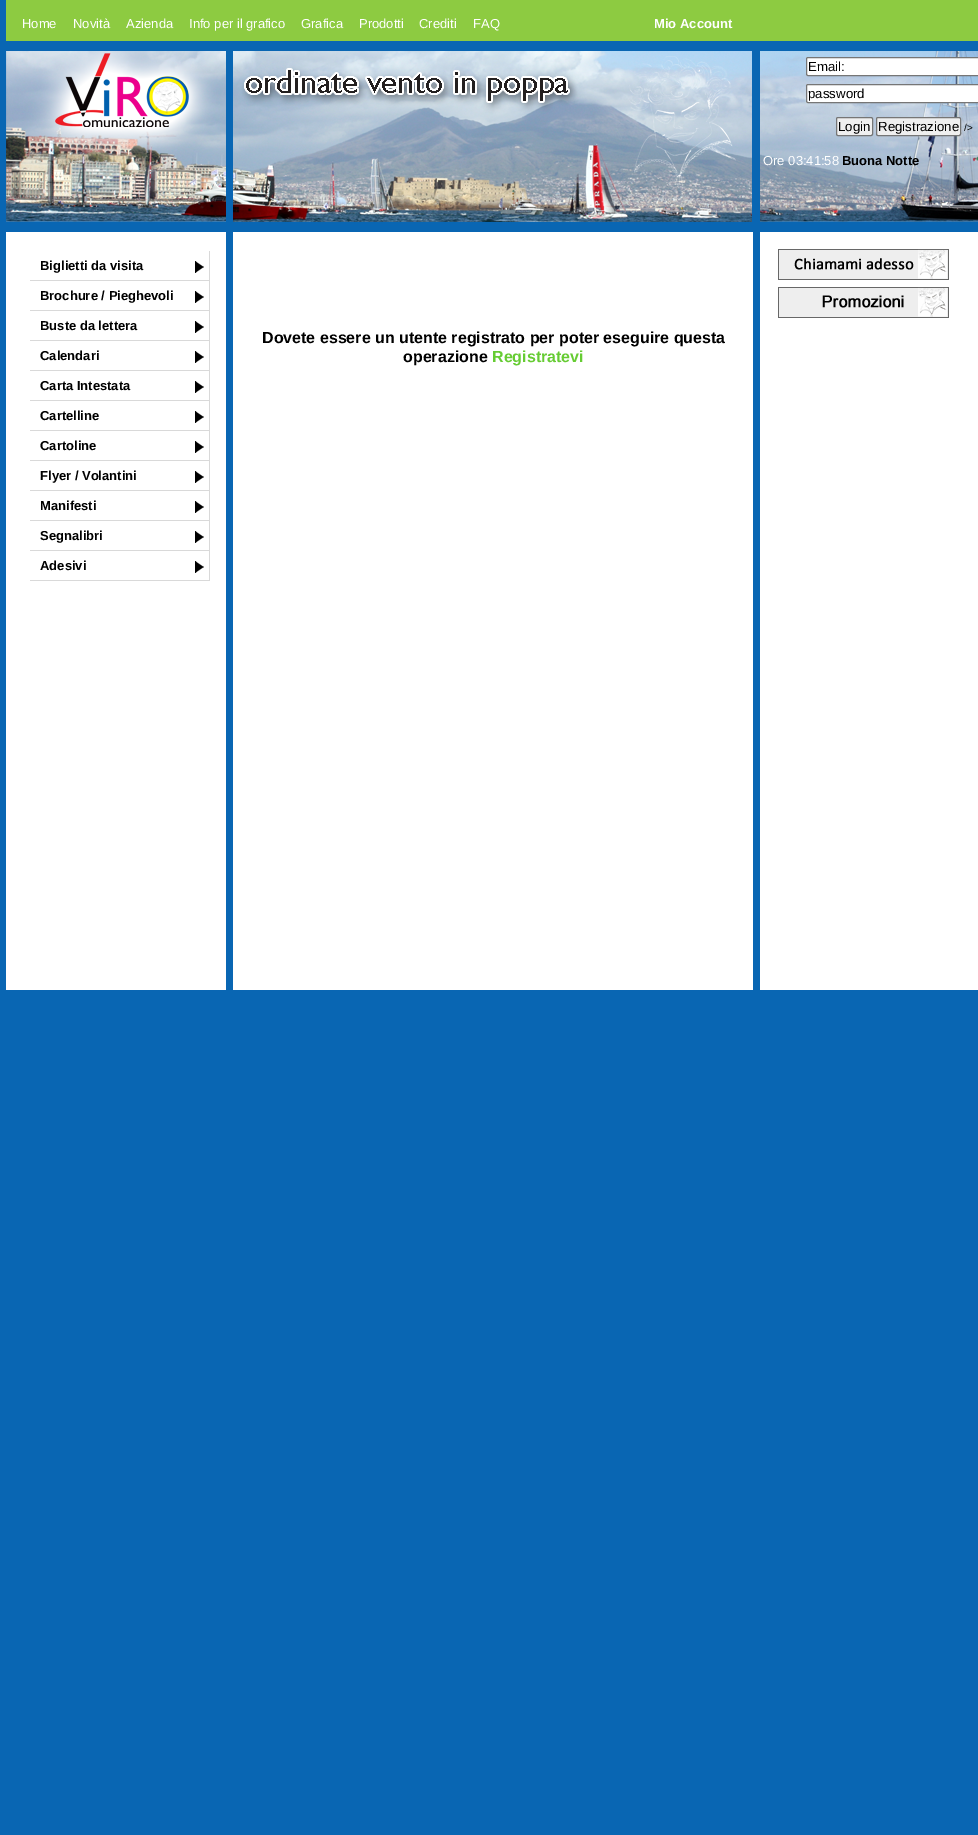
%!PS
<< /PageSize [978 1835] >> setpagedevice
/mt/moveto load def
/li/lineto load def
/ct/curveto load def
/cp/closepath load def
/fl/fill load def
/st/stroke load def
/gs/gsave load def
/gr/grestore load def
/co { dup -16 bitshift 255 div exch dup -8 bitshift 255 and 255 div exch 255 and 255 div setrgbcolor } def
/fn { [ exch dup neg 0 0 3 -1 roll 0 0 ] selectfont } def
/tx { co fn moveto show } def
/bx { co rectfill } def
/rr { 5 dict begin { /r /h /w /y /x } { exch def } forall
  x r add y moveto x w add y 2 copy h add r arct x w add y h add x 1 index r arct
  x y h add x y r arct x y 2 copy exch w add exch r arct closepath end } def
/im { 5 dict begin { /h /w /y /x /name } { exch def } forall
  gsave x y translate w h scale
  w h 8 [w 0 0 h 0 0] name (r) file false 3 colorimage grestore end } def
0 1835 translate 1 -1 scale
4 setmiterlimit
0 0 978 1835 16#0966B3 bx
6 0 972 41 16#8DCB41 bx
(media/1.raw) 6 51 220 171 im
(media/2.raw) 233 51 519 171 im
(media/3.raw) 760 51 218 171 im
16#FFFFFF co
808 57 mt 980 57 li 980 76 li 808 76 li 807 76 806 75 806 74 ct 806 59 li 806 58 807 57 808 57 ct cp fl
16#767676 co
806.5 57.5 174 18 1.5 rr st
16#FFFFFF co
808 84 mt 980 84 li 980 103 li 808 103 li 807 103 806 102 806 101 ct 806 86 li 806 85 807 84 808 84 ct cp fl
16#767676 co
806.5 84.5 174 18 1.5 rr st
16#EFEFEF co
836.5 117.5 36 18 1.5 rr gs fl gr
16#767676 co
st
16#EFEFEF co
876.5 117.5 84 18 1.5 rr gs fl gr
16#767676 co
st
6 232 220 758 16#FFFFFF bx
233 232 520 758 16#FFFFFF bx
760 232 218 758 16#FFFFFF bx
(media/4.raw) 195 261 9 12 im
209 251 1 330 16#D9D9D9 bx
30 280 180 1 16#D9D9D9 bx
(media/4.raw) 195 291 9 12 im
30 310 180 1 16#D9D9D9 bx
(media/4.raw) 195 321 9 12 im
30 340 180 1 16#D9D9D9 bx
(media/4.raw) 195 351 9 12 im
30 370 180 1 16#D9D9D9 bx
(media/4.raw) 195 381 9 12 im
30 400 180 1 16#D9D9D9 bx
(media/4.raw) 195 411 9 12 im
30 430 180 1 16#D9D9D9 bx
(media/4.raw) 195 441 9 12 im
30 460 180 1 16#D9D9D9 bx
(media/4.raw) 195 471 9 12 im
30 490 180 1 16#D9D9D9 bx
(media/4.raw) 195 501 9 12 im
30 520 180 1 16#D9D9D9 bx
(media/4.raw) 195 531 9 12 im
30 550 180 1 16#D9D9D9 bx
(media/4.raw) 195 561 9 12 im
30 580 180 1 16#D9D9D9 bx
(media/5.raw) 778 249 171 31 im
(media/6.raw) 778 287 171 31 im
(Home) 22 28 /LiberationSans-Regular 13 16#FFFFFF tx
(Novità) 73 28 /LiberationSans-Regular 13 16#FFFFFF tx
(Azienda) 126 28 /LiberationSans-Regular 13 16#FFFFFF tx
(Info per il grafico) 189 28 /LiberationSans-Regular 13 16#FFFFFF tx
(Grafica) 301 28 /LiberationSans-Regular 13 16#FFFFFF tx
(Prodotti) 359 28 /LiberationSans-Regular 13 16#FFFFFF tx
(Crediti) 419 28 /LiberationSans-Regular 13 16#FFFFFF tx
(FAQ) 473 28 /LiberationSans-Regular 13 16#FFFFFF tx
(Mio Account) 654 28 /LiberationSans-Bold 13 16#FFFFFF tx
(Email:) 808 71 /LiberationSans-Regular 13.25 16#000000 tx
(password) 808 98 /LiberationSans-Regular 13.25 16#000000 tx
(Login) 838 131 /LiberationSans-Regular 13.25 16#000000 tx
(Registrazione) 878 131 /LiberationSans-Regular 13.25 16#000000 tx
(/>) 964 131 /LiberationSans-Regular 10 16#000000 tx
(Ore 03:41:58) 763 165 /LiberationSans-Regular 13 16#FFFFFF tx
(Buona Notte) 842 165 /LiberationSans-Bold 13 16#000000 tx
(Biglietti da visita) 40 270 /LiberationSans-Bold 13 16#000000 tx
(Brochure / Pieghevoli) 40 300 /LiberationSans-Bold 13 16#000000 tx
(Buste da lettera) 40 330 /LiberationSans-Bold 13 16#000000 tx
(Calendari) 40 360 /LiberationSans-Bold 13 16#000000 tx
(Carta Intestata) 40 390 /LiberationSans-Bold 13 16#000000 tx
(Cartelline) 40 420 /LiberationSans-Bold 13 16#000000 tx
(Cartoline) 40 450 /LiberationSans-Bold 13 16#000000 tx
(Flyer / Volantini) 40 480 /LiberationSans-Bold 13 16#000000 tx
(Manifesti) 40 510 /LiberationSans-Bold 13 16#000000 tx
(Segnalibri) 40 540 /LiberationSans-Bold 13 16#000000 tx
(Adesivi) 40 570 /LiberationSans-Bold 13 16#000000 tx
(Dovete essere un utente registrato per poter eseguire questa) 262 343 /LiberationSans-Bold 16 16#000000 tx
(operazione) 403 362 /LiberationSans-Bold 16 16#000000 tx
(Registratevi) 492 362 /LiberationSans-Bold 16 16#66CC33 tx
showpage
